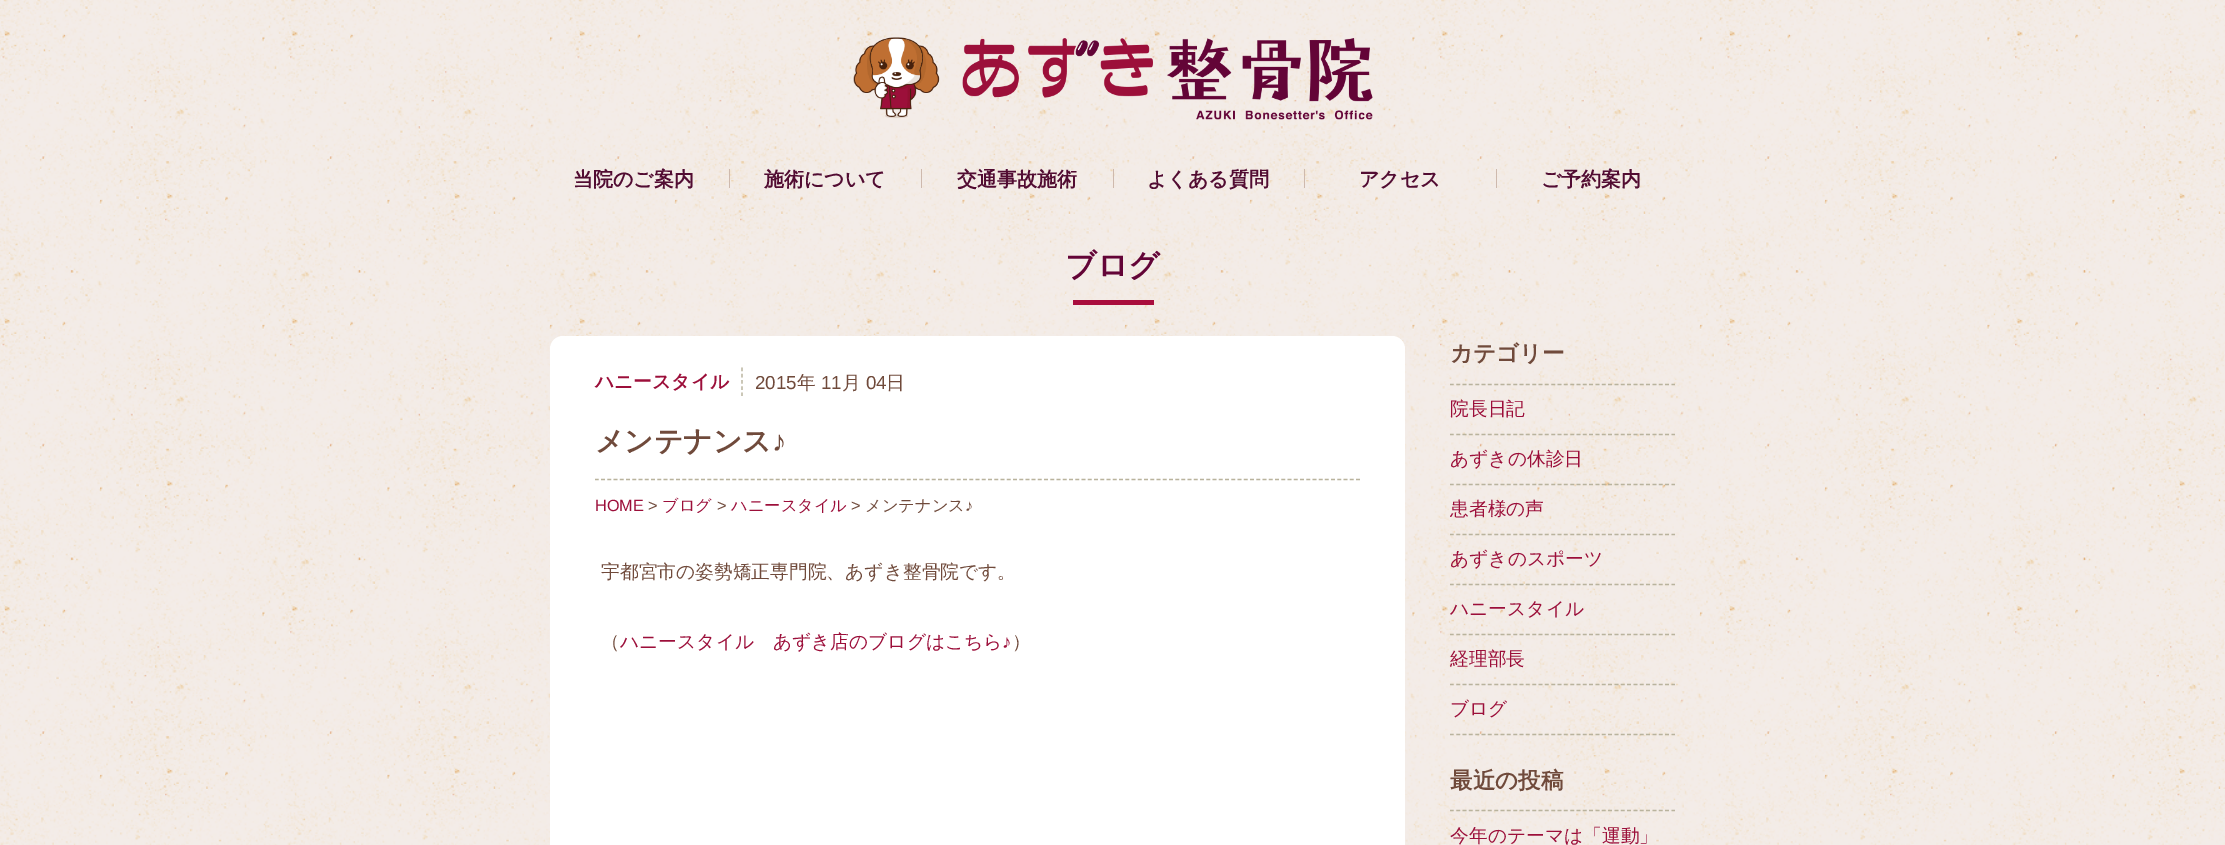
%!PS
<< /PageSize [2225 845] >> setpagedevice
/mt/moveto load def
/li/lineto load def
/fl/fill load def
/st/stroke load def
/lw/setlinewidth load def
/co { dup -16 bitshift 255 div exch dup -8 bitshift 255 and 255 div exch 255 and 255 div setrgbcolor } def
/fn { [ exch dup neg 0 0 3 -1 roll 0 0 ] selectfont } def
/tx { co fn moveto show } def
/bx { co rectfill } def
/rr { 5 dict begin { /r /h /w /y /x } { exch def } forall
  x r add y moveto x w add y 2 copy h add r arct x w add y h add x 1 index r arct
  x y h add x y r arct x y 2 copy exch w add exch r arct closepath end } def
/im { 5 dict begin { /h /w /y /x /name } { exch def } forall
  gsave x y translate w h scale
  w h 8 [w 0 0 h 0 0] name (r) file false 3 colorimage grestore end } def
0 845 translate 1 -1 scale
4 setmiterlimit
0 0 2225 845 16#FFFFFF bx
(media/1.raw) 0 0 2225 845 im
(media/2.raw) 853 37 520 83 im
729 169 1 19 16#CEB9AD bx
921 169 1 19 16#CEB9AD bx
1113 169 1 19 16#CEB9AD bx
1304 169 1 19 16#CEB9AD bx
1496 169 1 19 16#CEB9AD bx
1073 300 81 5 16#A90D3D bx
16#FFFFFF co
550 336 855 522 13 rr fl
16#B9B39D co
1.2 lw
[3.75 2.5] 0 setdash
742 367.5 mt 742 396 li st
[3.75 2.49] 0 setdash
595 479.5 mt 1360 479.5 li st
[3.75 2.58] 0 setdash
1450 384.5 mt 1675 384.5 li st
1450 434.5 mt 1675 434.5 li st
1450 484.5 mt 1675 484.5 li st
1450 534.5 mt 1675 534.5 li st
1450 584.5 mt 1675 584.5 li st
1450 634.5 mt 1675 634.5 li st
1450 684.5 mt 1675 684.5 li st
1450 734.5 mt 1675 734.5 li st
1450 810.5 mt 1675 810.5 li st
(当院のご案内) 573 186 /WenQuanYiZenHei-Bold 20 16#520C32 tx
(施術について) 764 186 /WenQuanYiZenHei-Bold 20 16#520C32 tx
(交通事故施術) 957 186 /WenQuanYiZenHei-Bold 20 16#520C32 tx
(よくある質問) 1147 186 /WenQuanYiZenHei-Bold 20 16#520C32 tx
(アクセス) 1359 186 /WenQuanYiZenHei-Bold 20 16#520C32 tx
(ご予約案内) 1541 186 /WenQuanYiZenHei-Bold 20 16#520C32 tx
(ブログ) 1065 276 /WenQuanYiZenHei-Bold 31 16#630437 tx
(ハニースタイル) 595 388 /WenQuanYiZenHei-Bold 18.75 16#9C0F3A tx
(2015) 755 389 /LiberationSans-Regular 18.75 16#704A3B tx
(年) 797 389 /WenQuanYiZenHei-Medium 18.75 16#704A3B tx
(11) 821 389 /LiberationSans-Regular 18.75 16#704A3B tx
(月) 842 389 /WenQuanYiZenHei-Medium 18.75 16#704A3B tx
(04) 866 389 /LiberationSans-Regular 18.75 16#704A3B tx
(日) 886 389 /WenQuanYiZenHei-Medium 18.75 16#704A3B tx
(メンテナンス) 595 451 /WenQuanYiZenHei-Bold 28.75 16#704A3B tx
(♪) 772 451 /LiberationSans-Bold 28.75 16#704A3B tx
(HOME) 595 511 /LiberationSans-Regular 16.25 16#9C0F3A tx
(>) 648 511 /LiberationSans-Regular 16.25 16#704A3B tx
(ブログ) 662 511 /WenQuanYiZenHei-Medium 16.25 16#9C0F3A tx
(>) 717 511 /LiberationSans-Regular 16.25 16#704A3B tx
(ハニースタイル) 731 511 /WenQuanYiZenHei-Medium 16.25 16#9C0F3A tx
(>) 851 511 /LiberationSans-Regular 16.25 16#704A3B tx
(メンテナンス) 865 511 /WenQuanYiZenHei-Medium 16.25 16#704A3B tx
(♪) 965 511 /LiberationSans-Regular 16.25 16#704A3B tx
(宇都宮市の姿勢矯正専門院、あずき整骨院です。) 601 578 /WenQuanYiZenHei-Medium 18.75 16#704A3B tx
(（) 601 648 /WenQuanYiZenHei-Medium 18.75 16#704A3B tx
(ハニースタイル　あずき店のブログはこちら) 620 648 /WenQuanYiZenHei-Medium 18.75 16#9C0F3A tx
(♪) 1002 648 /LiberationSans-Regular 18.75 16#9C0F3A tx
(）) 1012 648 /WenQuanYiZenHei-Medium 18.75 16#704A3B tx
(カテゴリー) 1450 361 /WenQuanYiZenHei-Bold 22.5 16#704A3B tx
(院長日記) 1450 415 /WenQuanYiZenHei-Medium 18.75 16#9C0F3A tx
(あずきの休診日) 1450 465 /WenQuanYiZenHei-Medium 18.75 16#9C0F3A tx
(患者様の声) 1450 515 /WenQuanYiZenHei-Medium 18.75 16#9C0F3A tx
(あずきのスポーツ) 1450 565 /WenQuanYiZenHei-Medium 18.75 16#9C0F3A tx
(ハニースタイル) 1450 615 /WenQuanYiZenHei-Medium 18.75 16#9C0F3A tx
(経理部長) 1450 665 /WenQuanYiZenHei-Medium 18.75 16#9C0F3A tx
(ブログ) 1450 715 /WenQuanYiZenHei-Medium 18.75 16#9C0F3A tx
(最近の投稿) 1450 788 /WenQuanYiZenHei-Bold 22.5 16#704A3B tx
(今年のテーマは「運動」) 1450 842 /WenQuanYiZenHei-Medium 18.75 16#9C0F3A tx
showpage
